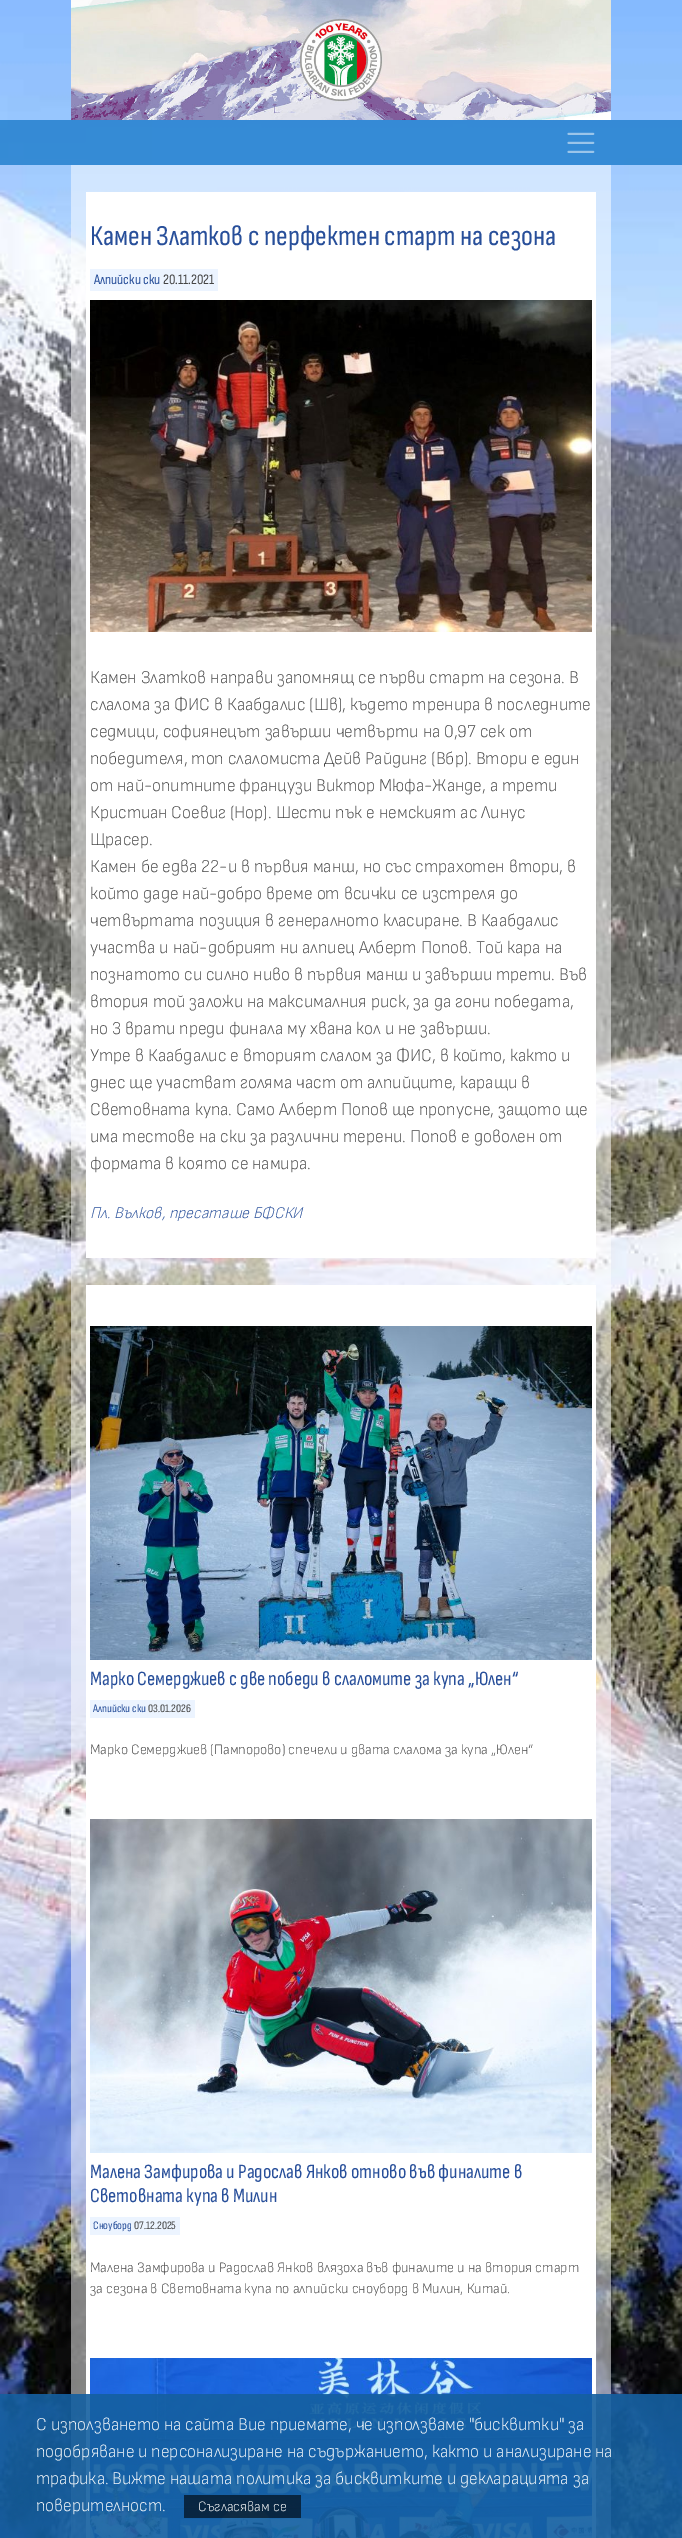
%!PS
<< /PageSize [682 2538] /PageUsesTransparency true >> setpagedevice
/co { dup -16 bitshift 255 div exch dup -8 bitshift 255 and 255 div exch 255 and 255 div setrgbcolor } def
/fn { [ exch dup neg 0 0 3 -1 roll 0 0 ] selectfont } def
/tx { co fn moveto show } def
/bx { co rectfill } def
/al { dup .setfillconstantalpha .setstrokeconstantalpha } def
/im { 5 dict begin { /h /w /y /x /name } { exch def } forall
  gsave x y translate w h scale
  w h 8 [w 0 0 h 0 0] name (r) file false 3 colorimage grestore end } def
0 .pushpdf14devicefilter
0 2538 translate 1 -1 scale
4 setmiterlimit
0 0 682 2538 16#FFFFFF bx
(media/1.raw) 0 0 682 2538 im
(media/2.raw) 71 0 540 120 im
0.9 al
0 120 682 45 16#2A84D1 bx
1 al
(media/3.raw) 567 132 28 21 im
0.5 al
71 165 540 2373 16#FFFFFF bx
1 al
86 192 510 1066 16#FFFFFF bx
90 269 128 22 16#ECF4FF bx
(media/4.raw) 90 300 502 332 im
86 1285 510 1253 16#FFFFFF bx
(media/5.raw) 90 1326 502 334 im
90 1700 105 18 16#ECF4FF bx
(media/6.raw) 90 1819 502 334 im
90 2217 90 18 16#ECF4FF bx
(media/7.raw) 90 2358 502 180 im
0.9 al
0 2394 682 144 16#145FA0 bx
0.6 al
184 2495 117 23 16#000000 bx
1 al
(Камен Златков с перфектен старт на сезона) 90 245 /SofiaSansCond-Regular 28.75 16#284F9A tx
(Алпийски ски) 94 284 /SofiaSansCond-Regular 14.4 16#284F9A tx
(20.11.2021) 163 284 /SofiaSansCond-Regular 14.4 16#454545 tx
(Камен Златков направи запомнящ се първи старт на сезона. В) 90 683 /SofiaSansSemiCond-Light 18 16#454545 tx
(слалома за ФИС в Каабдалис \(Шв\), където тренира в последните) 90 710 /SofiaSansSemiCond-Light 18 16#454545 tx
(седмици, софиянецът завърши четвърти на 0,97 сек от) 90 737 /SofiaSansSemiCond-Light 18 16#454545 tx
(победителя, топ слаломиста Дейв Райдинг \(Вбр\). Втори е един) 90 764 /SofiaSansSemiCond-Light 18 16#454545 tx
(от най-опитните французи Виктор Мюфа-Жанде, а трети) 90 791 /SofiaSansSemiCond-Light 18 16#454545 tx
(Кристиан Соевиг \(Нор\). Шести пък е немският ас Линус) 90 818 /SofiaSansSemiCond-Light 18 16#454545 tx
(Щрасер.) 90 845 /SofiaSansSemiCond-Light 18 16#454545 tx
(Камен бе едва 22-и в първия манш, но със страхотен втори, в) 90 872 /SofiaSansSemiCond-Light 18 16#454545 tx
(който даде най-добро време от всички се изстреля до) 90 899 /SofiaSansSemiCond-Light 18 16#454545 tx
(четвъртата позиция в генералното класиране. В Каабдалис) 90 926 /SofiaSansSemiCond-Light 18 16#454545 tx
(участва и най-добрият ни алпиец Алберт Попов. Той кара на) 90 953 /SofiaSansSemiCond-Light 18 16#454545 tx
(познатото си силно ниво в първия манш и завърши трети. Във) 90 980 /SofiaSansSemiCond-Light 18 16#454545 tx
(втория той заложи на максималния риск, за да гони победата,) 90 1007 /SofiaSansSemiCond-Light 18 16#454545 tx
(но 3 врати преди финала му хвана кол и не завърши.) 90 1034 /SofiaSansSemiCond-Light 18 16#454545 tx
(Утре в Каабдалис е вторият слалом за ФИС, в който, както и) 90 1061 /SofiaSansSemiCond-Light 18 16#454545 tx
(днес ще участват голяма част от алпийците, каращи в) 90 1088 /SofiaSansSemiCond-Light 18 16#454545 tx
(Световната купа. Само Алберт Попов ще пропусне, защото ще) 90 1115 /SofiaSansSemiCond-Light 18 16#454545 tx
(има тестове на ски за различни терени. Попов е доволен от) 90 1142 /SofiaSansSemiCond-Light 18 16#454545 tx
(формата в която се намира.) 90 1169 /SofiaSansSemiCond-Light 18 16#454545 tx
(Пл. Вълков, пресаташе БФСКИ) 90 1218 /SofiaSansSemiCond-LightItalic 16.25 16#284F9A tx
(Марко Семерджиев с две победи в слаломите за купа „Юлен“) 90 1685 /SofiaSansCond-Regular 20.2 16#284F9A tx
(Алпийски ски) 93 1712 /SofiaSansCond-Regular 11.5 16#284F9A tx
(03.01.2026) 148 1712 /SofiaSansCond-Regular 11.5 16#454545 tx
(Марко Семерджиев \(Пампорово\) спечели и двата слалома за купа „Юлен“) 90 1754 /SofiaSansSemiCond-Light 14.4 16#454545 tx
(Малена Замфирова и Радослав Янков отново във финалите в) 90 2178 /SofiaSansCond-Regular 20.2 16#284F9A tx
(Световната купа в Милин) 90 2202 /SofiaSansCond-Regular 20.2 16#284F9A tx
(Сноуборд) 93 2229 /SofiaSansCond-Regular 11.5 16#284F9A tx
(07.12.2025) 134 2229 /SofiaSansCond-Regular 11.5 16#454545 tx
(Малена Замфирова и Радослав Янков влязоха във финалите и на втория старт) 90 2272 /SofiaSansSemiCond-Light 14.4 16#454545 tx
(за сезона в Световната купа по алпийски сноуборд в Милин, Китай.) 90 2293 /SofiaSansSemiCond-Light 14.4 16#454545 tx
(С използването на сайта Вие приемате, че използваме "бисквитки" за) 36 2430 /SofiaSansSemiCond-Light 18 16#FFFFFF tx
(подобряване и персонализиране на съдържанието, както и анализиране на) 36 2457 /SofiaSansSemiCond-Light 18 16#FFFFFF tx
(трафика. Вижте нашата политика за бисквитките и декларацията за) 36 2484 /SofiaSansSemiCond-Light 18 16#FFFFFF tx
(поверителност.) 36 2511 /SofiaSansSemiCond-Light 18 16#FFFFFF tx
(Съгласявам се) 198 2511 /SofiaSansSemiCond-Light 14.4 16#FFFFFF tx
.poppdf14devicefilter showpage
